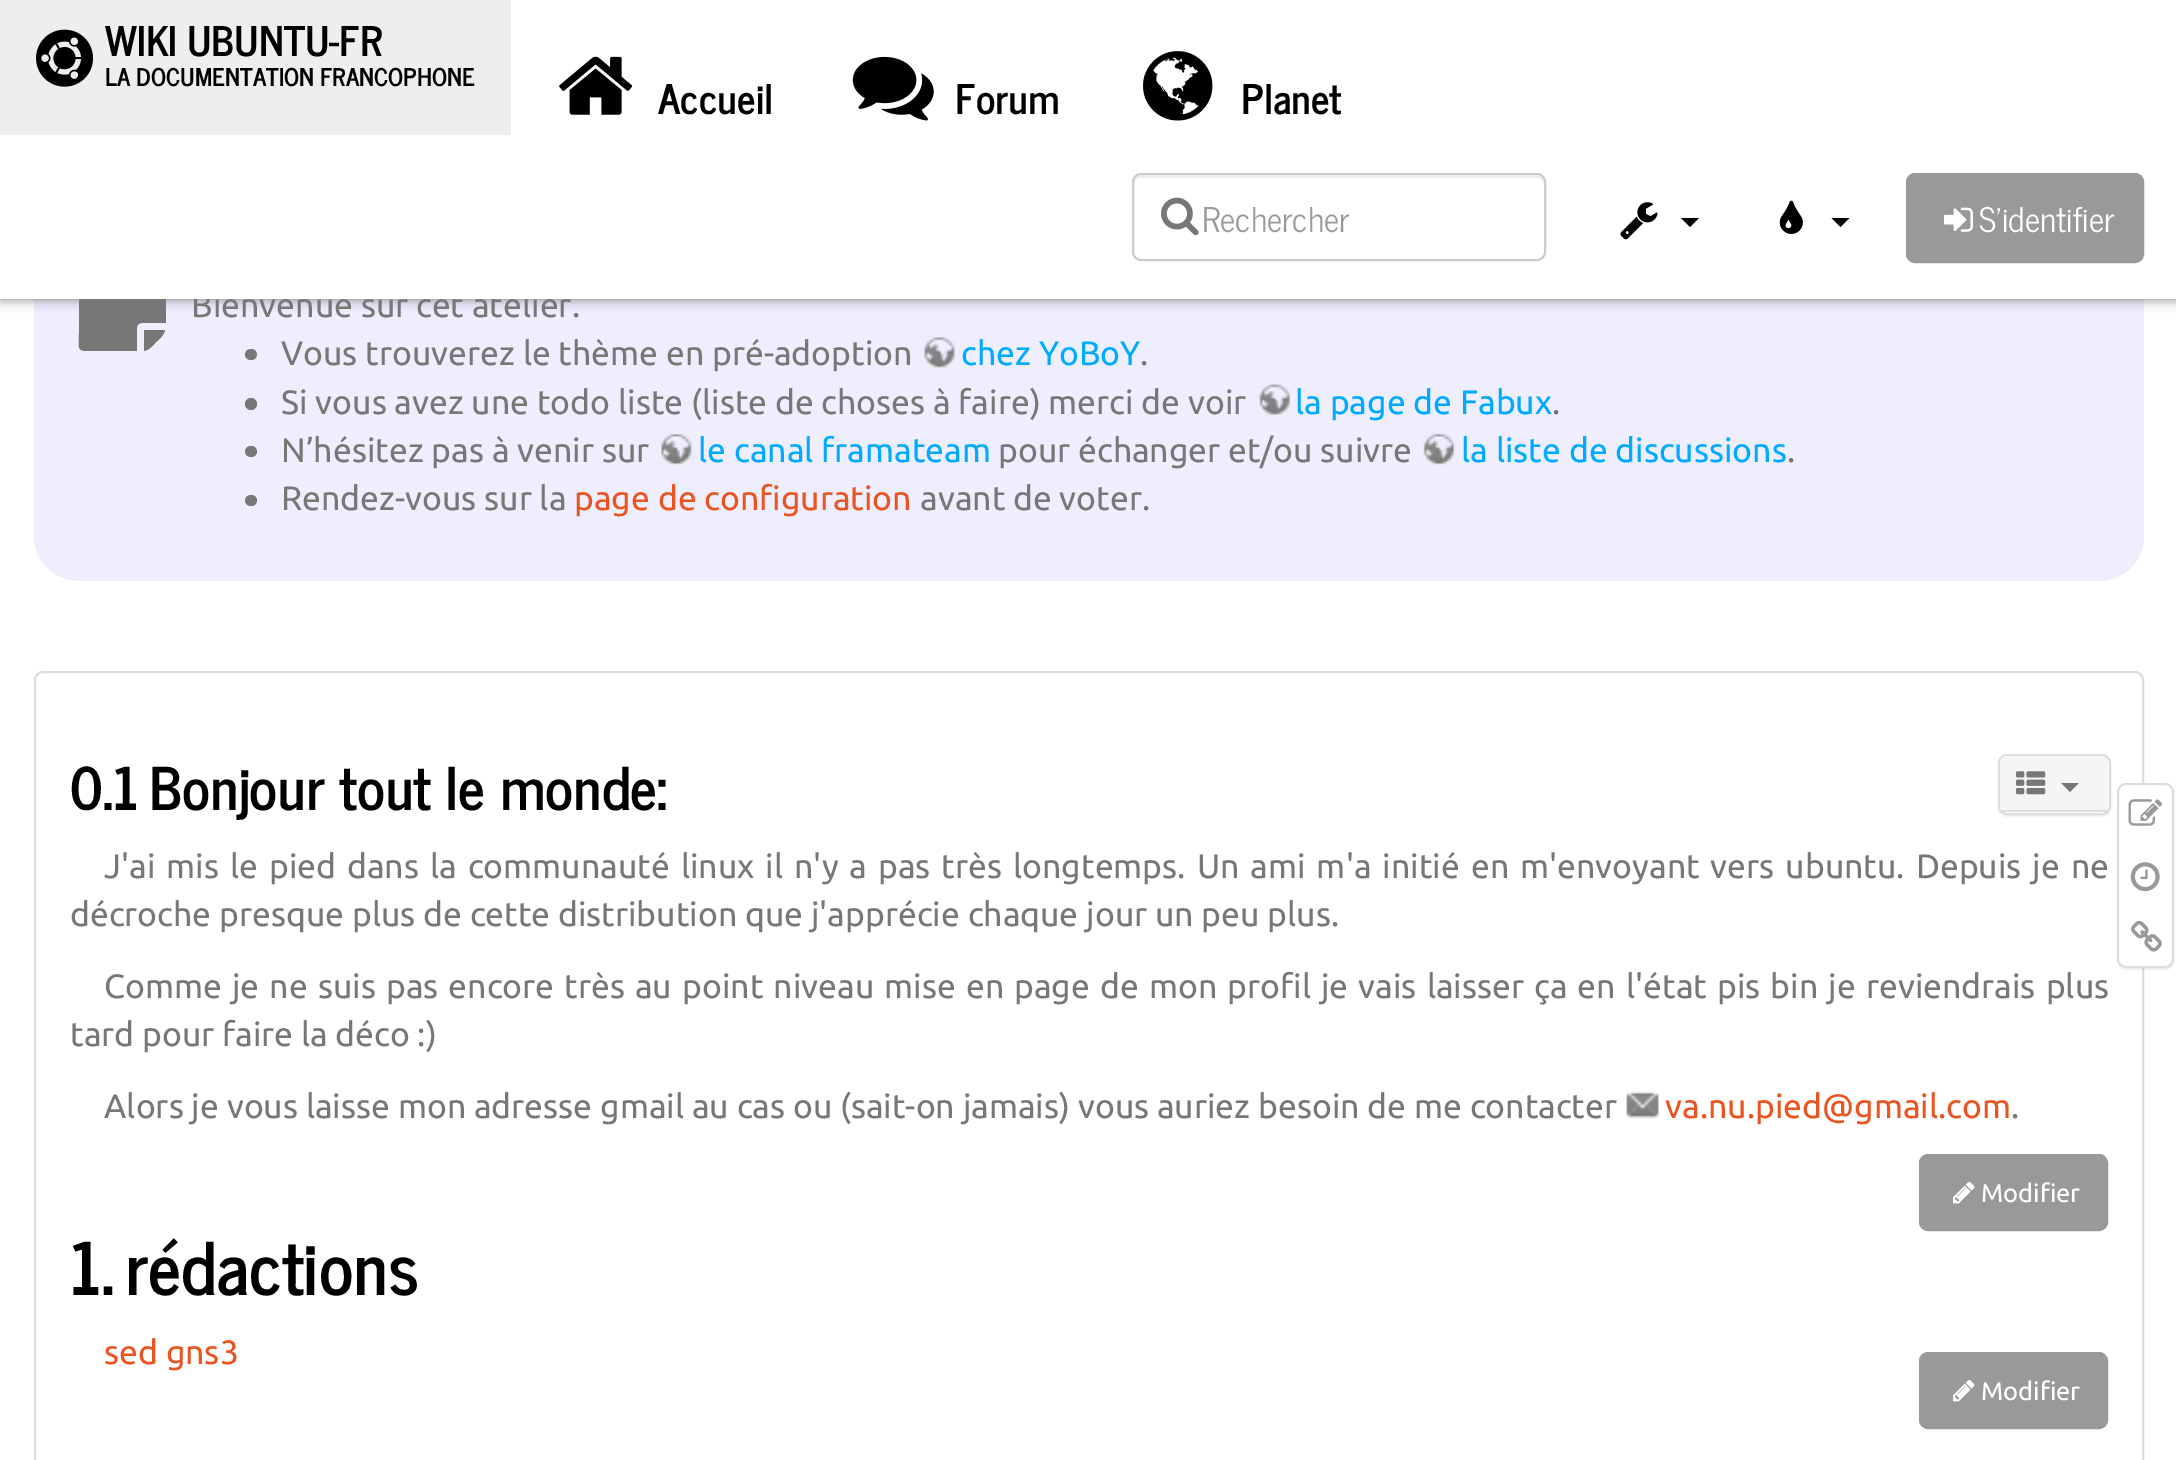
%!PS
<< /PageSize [2176 1460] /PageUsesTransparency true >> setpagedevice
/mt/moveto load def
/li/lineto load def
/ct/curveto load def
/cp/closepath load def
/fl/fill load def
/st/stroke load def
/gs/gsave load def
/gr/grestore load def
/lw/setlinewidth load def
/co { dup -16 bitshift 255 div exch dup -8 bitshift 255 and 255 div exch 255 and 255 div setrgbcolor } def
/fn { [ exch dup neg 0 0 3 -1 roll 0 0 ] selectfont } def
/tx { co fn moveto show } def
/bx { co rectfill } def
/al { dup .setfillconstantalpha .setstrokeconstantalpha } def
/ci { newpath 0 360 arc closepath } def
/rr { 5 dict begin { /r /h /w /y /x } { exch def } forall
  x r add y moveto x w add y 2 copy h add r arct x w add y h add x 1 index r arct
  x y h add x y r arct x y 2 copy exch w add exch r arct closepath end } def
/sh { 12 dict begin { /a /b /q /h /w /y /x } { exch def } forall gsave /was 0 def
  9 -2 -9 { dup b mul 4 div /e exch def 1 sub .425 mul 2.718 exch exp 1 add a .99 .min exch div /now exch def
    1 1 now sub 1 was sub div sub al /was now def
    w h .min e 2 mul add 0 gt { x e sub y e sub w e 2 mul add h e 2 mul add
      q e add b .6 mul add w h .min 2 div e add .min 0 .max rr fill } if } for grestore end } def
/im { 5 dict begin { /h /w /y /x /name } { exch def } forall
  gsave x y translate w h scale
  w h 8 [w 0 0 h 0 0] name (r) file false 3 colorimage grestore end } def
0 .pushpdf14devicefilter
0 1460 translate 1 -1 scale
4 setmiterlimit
0 0 2176 1460 16#FFFFFF bx
16#EEEEFF co
34 248 2110 333 45 rr fl
16#777777 co
137 328 mt 137 351 li 93 351 li 76 351 79 351 79 333 ct 79 283 li 79 263 77 265 97 265 ct 147 265 li 165 265 166 262 166 279 ct 166 323 li 150 323 li 146 323 137 321 137 328 ct cp 144 330 mt 165 330 li 164 335 160 339 156 342 ct 153 346 149 350 144 351 ct cp fl
0 0 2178 299 0 6 1 sh
245 349 12 11 5.5 rr fl
(media/9.raw) 924 337 32 33 im
251 404 6 ci fl
(media/10.raw) 1259 384 32 33 im
245 446 12 11 5.5 rr fl
(media/11.raw) 661 433 32 34 im
(media/12.raw) 1423 433 33 33 im
245 495 12 11 5.5 rr fl
16#DDDDDD co
2 lw
35 672 2108 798 8 rr st
16#000000 co
1998 756 113 61 9 1 .05 sh
16#FFFFFF co
1999 755 111 59 8 rr gs fl gr
16#DDDDDD co
st
16#F5F5F5 co
2007 756 mt 2101 756 li 2105 756 2108 759 2108 763 ct 2108 812 li 2000 812 li 2000 763 li 2000 759 2003 756 2007 756 ct cp fl
2000 810 108 2 16#DDDDDD bx
(media/13.raw) 2016 771 30 24 im
16#777777 co
2061 783 mt 2079 783 li 2070 792 li cp fl
(media/14.raw) 1626 1091 33 28 im
16#999999 co
1920 1155 187 75 8 rr gs fl gr
st
(media/15.raw) 1953 1182 22 22 im
1920 1353 187 75 8 rr gs fl gr
st
(media/15.raw) 1953 1380 22 22 im
16#000000 co
2117 785 57 185 9 1 .05 sh
16#FFFFFF co
2118 784 55 183 8 rr gs fl gr
16#DDDDDD co
st
(media/16.raw) 2128 799 34 27 im
(media/17.raw) 2130 862 30 30 im
(media/18.raw) 2131 920 31 32 im
(Bienvenue sur cet atelier.) 191 317 /Ubuntu-Regular 33.75 16#777777 tx
0 0 2176 299 16#FFFFFF bx
16#999999 co
1907 174 236 88 8 rr gs fl gr
st
(S'identifier) 1979 232 /NewsCycle-Regular 33.75 16#FFFFFF tx
(media/8.raw) 1944 207 29 25 im
16#000000 co
1831.5 218 mt 1849.5 218 li 1840.5 227 li cp fl
(media/7.raw) 1779 200 24 34 im
1681 218 mt 1699 218 li 1690 227 li cp fl
(media/6.raw) 1620 202 38 38 im
16#ECECEC co
1141 178 mt 1537 178 li 1540 178 1544 181 1544 184 ct 1544 180 1542 176 1537 176 ct 1141 176 li 1136 176 1134 180 1134 184 ct 1134 181 1137 178 1141 178 ct cp fl
16#CCCCCC co
1133 174 412 86 8 rr st
(media/5.raw) 1161 197 38 39 im
(Rechercher) 1202 232 /NewsCycle-Regular 33.75 16#999999 tx
(Planet) 1241 114 /NewsCycle-Bold 40.5 16#000000 tx
(media/4.raw) 1143 51 70 70 im
(Forum) 955 114 /NewsCycle-Bold 40.5 16#000000 tx
(media/3.raw) 852 56 82 65 im
(Accueil) 658 114 /NewsCycle-Bold 40.5 16#000000 tx
(media/2.raw) 559 56 73 59 im
0 0 511 135 16#EEEEEE bx
(LA DOCUMENTATION FRANCOPHONE) 105 86 /NewsCycle-Bold 24.25 16#000000 tx
(WIKI UBUNTU-FR) 105 56 /NewsCycle-Bold 40.5 16#000000 tx
(media/1.raw) 36 29 58 58 im
(Vous trouverez le thème en pré-adoption) 281 365 /Ubuntu-Regular 33.75 16#777777 tx
(chez YoBoY) 961 365 /Ubuntu-Regular 33.75 16#00AAFF tx
(.) 1140 365 /Ubuntu-Regular 33.75 16#777777 tx
(Si vous avez une todo liste \(liste de choses à faire\) merci de voir) 281 414 /Ubuntu-Regular 33.75 16#777777 tx
(la page de Fabux) 1295 414 /Ubuntu-Regular 33.75 16#00AAFF tx
(.) 1552 414 /Ubuntu-Regular 33.75 16#777777 tx
(N’hésitez pas à venir sur) 281 462 /Ubuntu-Regular 33.75 16#777777 tx
(le canal framateam) 698 462 /Ubuntu-Regular 33.75 16#00AAFF tx
(pour échanger et/ou suivre) 998 462 /Ubuntu-Regular 33.75 16#777777 tx
(la liste de discussions) 1461 462 /Ubuntu-Regular 33.75 16#00AAFF tx
(.) 1787 462 /Ubuntu-Regular 33.75 16#777777 tx
(Rendez-vous sur la) 281 510 /Ubuntu-Regular 33.75 16#777777 tx
(page de configuration) 574 510 /Ubuntu-Regular 33.75 16#E95420 tx
(avant de voter.) 920 510 /Ubuntu-Regular 33.75 16#777777 tx
(0.1) 70 810 /NewsCycle-Bold 58.5 16#000000 tx
(Bonjour tout le monde:) 149 810 /NewsCycle-Bold 58.5 16#000000 tx
/Ubuntu-Regular 33.75 fn
16#777777 co
104 878 mt 3.2 0 32 (J'ai mis le pied dans la communauté linux il n'y a pas très longtemps. Un ami m'a initié en m'envoyant vers ubuntu. Depuis je ne) widthshow
(décroche presque plus de cette distribution que j'apprécie chaque jour un peu plus.) 70 926 /Ubuntu-Regular 33.75 16#777777 tx
104 998 mt 2.3 0 32 (Comme je ne suis pas encore très au point niveau mise en page de mon profil je vais laisser ça en l'état pis bin je reviendrais plus) widthshow
(tard pour faire la déco :\)) 70 1046 /Ubuntu-Regular 33.75 16#777777 tx
(Alors je vous laisse mon adresse gmail au cas ou \(sait-on jamais\) vous auriez besoin de me contacter) 104 1118 /Ubuntu-Regular 33.75 16#777777 tx
(va.nu.pied@gmail.com) 1665 1118 /Ubuntu-Regular 33.75 16#E95420 tx
(.) 2011 1118 /Ubuntu-Regular 33.75 16#777777 tx
(Modifier) 1981 1202 /Ubuntu-Regular 25.5 16#FFFFFF tx
(1.) 70 1295 /NewsCycle-Bold 72 16#000000 tx
(rédactions) 125 1295 /NewsCycle-Bold 72 16#000000 tx
(sed gns3) 104 1364 /Ubuntu-Regular 33.75 16#E95420 tx
(Modifier) 1981 1400 /Ubuntu-Regular 25.5 16#FFFFFF tx
.poppdf14devicefilter showpage
